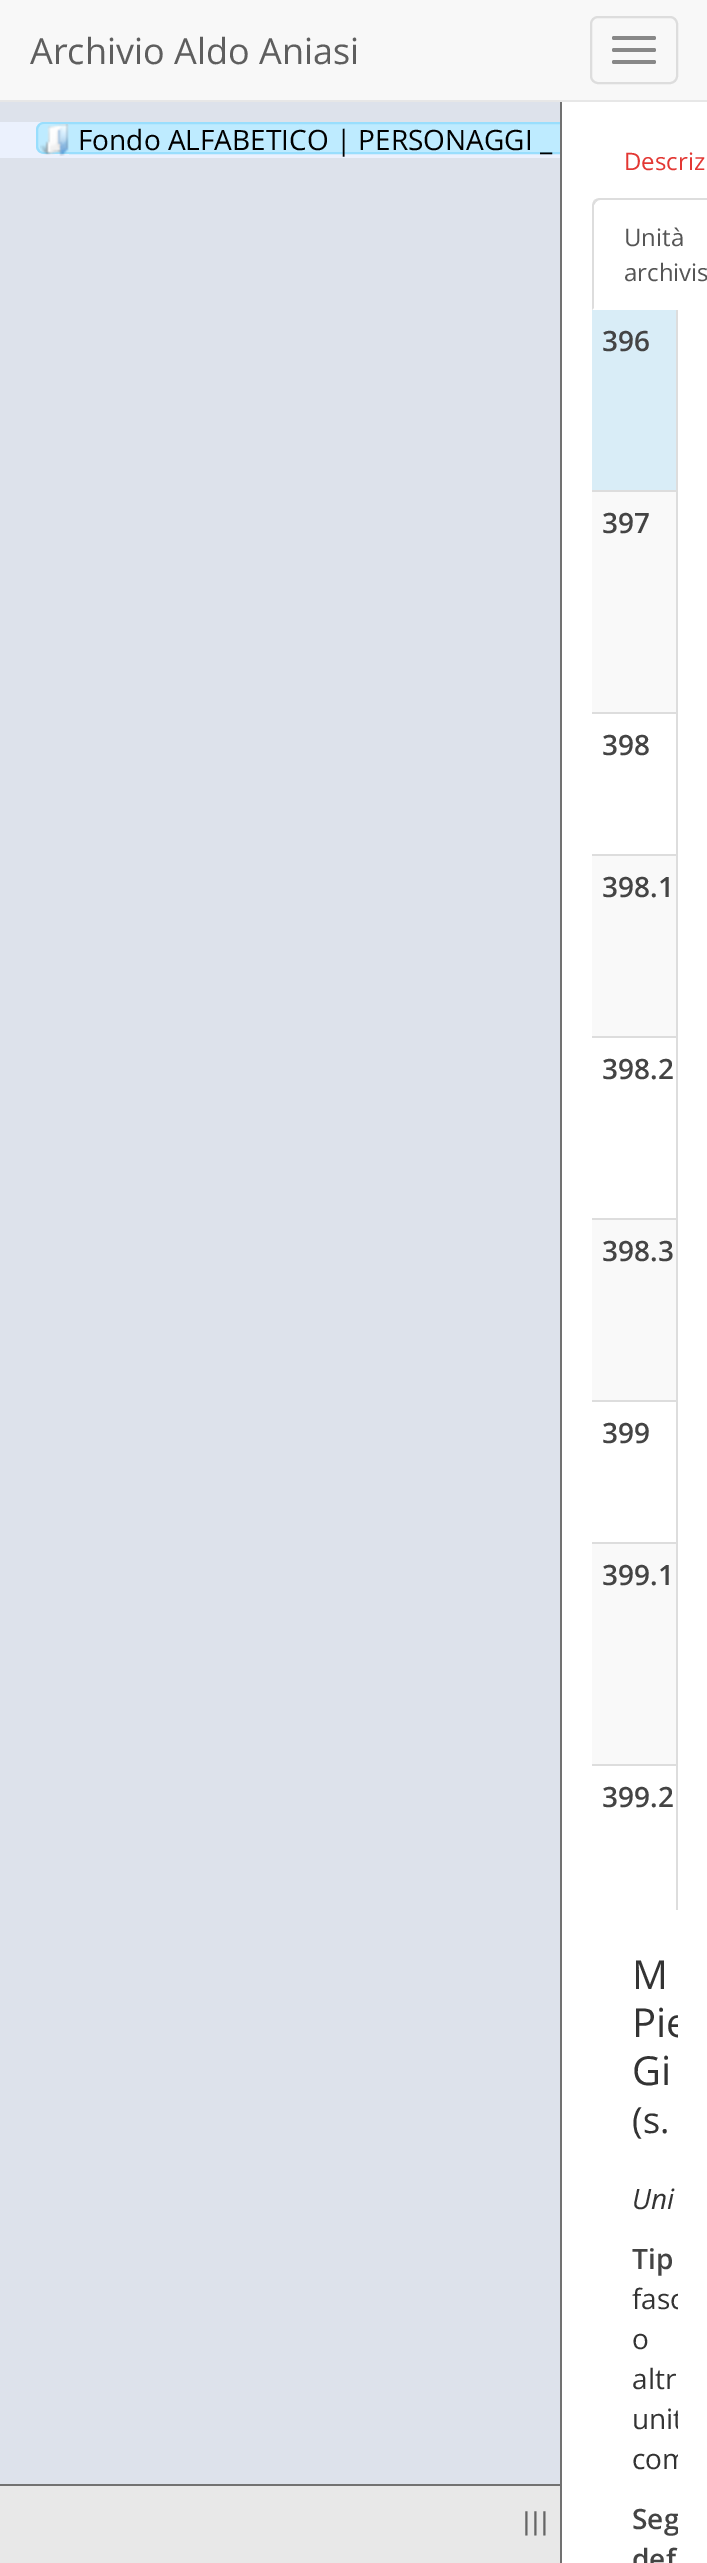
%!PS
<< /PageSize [707 2563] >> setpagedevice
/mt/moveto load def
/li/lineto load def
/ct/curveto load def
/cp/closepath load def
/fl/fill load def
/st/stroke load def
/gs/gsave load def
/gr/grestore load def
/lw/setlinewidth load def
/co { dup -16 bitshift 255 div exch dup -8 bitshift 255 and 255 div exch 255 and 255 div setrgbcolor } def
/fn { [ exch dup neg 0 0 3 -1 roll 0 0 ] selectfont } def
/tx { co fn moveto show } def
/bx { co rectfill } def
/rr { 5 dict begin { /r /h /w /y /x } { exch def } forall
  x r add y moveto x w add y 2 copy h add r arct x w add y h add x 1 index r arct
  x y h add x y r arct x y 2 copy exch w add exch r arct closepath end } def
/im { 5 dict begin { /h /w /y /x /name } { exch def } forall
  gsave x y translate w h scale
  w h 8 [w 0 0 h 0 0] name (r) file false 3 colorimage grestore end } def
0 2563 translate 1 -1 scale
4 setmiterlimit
0 0 707 2563 16#FFFFFF bx
0 0 707 100 16#F8F8F8 bx
0 100 707 2 16#E7E7E7 bx
16#DDDDDD co
2 lw
591 17 86 66 7 rr st
16#888888 co
612 36 44 4 2 rr fl
612 48 44 4 2 rr fl
612 60 44 4 2 rr fl
0 102 560 2382 16#DDE2EB bx
0 122 560 36 16#EBF1FD bx
16#BEEBFF co
44 122 mt 560 122 li 560 154 li 44 154 li 39.5 154 36 150.5 36 146 ct 36 130 li 36 125.5 39.5 122 44 122 ct cp fl
gs
0 102 560 2388 rectclip
16#99DEFD co
37 123 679 30 7 rr st
gr
(media/1.raw) 40 124 29 32 im
0 2486 560 77 16#E8E8E8 bx
0 2484 560 2 16#717171 bx
560 102 2 2461 16#717171 bx
16#DDDDDD co
600 198 mt 598 198 596 199 594 200 ct 596 202 li 597 201 598 200 600 200 ct 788 200 li 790 200 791 201 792 202 ct 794 200 li 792 199 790 198 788 198 ct cp fl
592 310 mt 594 308 li 594 205 li 596 202 li 594 200 li 593 202 592 204 592 206 ct cp fl
676 310 2 1600 16#DDDDDD bx
592 310 84 180 16#D9EDF7 bx
592 492 84 220 16#F9F9F9 bx
592 490 84 2 16#DDDDDD bx
592 712 84 2 16#DDDDDD bx
592 856 84 180 16#F9F9F9 bx
592 854 84 2 16#DDDDDD bx
592 1036 84 2 16#DDDDDD bx
592 1220 84 180 16#F9F9F9 bx
592 1218 84 2 16#DDDDDD bx
592 1400 84 2 16#DDDDDD bx
592 1544 84 220 16#F9F9F9 bx
592 1542 84 2 16#DDDDDD bx
592 1764 84 2 16#DDDDDD bx
(Archivio Aldo Aniasi) 30 64 /OpenSans-Regular 36 16#5E5E5E tx
(Fondo ALFABETICO | PERSONAGGI _) 78 150 /OpenSans-Regular 28 16#000000 tx
/LiberationSans-Regular 26 fn
16#666666 co
523 2530 mt 2 0 (|||) ashow
(Descriz) 624 170 /OpenSans-Regular 24 16#E33733 tx
(Unità) 624 246 /OpenSans-Regular 24 16#555555 tx
(archivis) 624 281 /OpenSans-Regular 24 16#555555 tx
(396) 602 351 /OpenSans-SemiBold 28 16#444444 tx
(397) 602 533 /OpenSans-SemiBold 28 16#444444 tx
(398) 602 755 /OpenSans-SemiBold 28 16#444444 tx
(398.1) 602 897 /OpenSans-SemiBold 28 16#444444 tx
(398.2) 602 1079 /OpenSans-SemiBold 28 16#444444 tx
(398.3) 602 1261 /OpenSans-SemiBold 28 16#444444 tx
(399) 602 1443 /OpenSans-SemiBold 28 16#444444 tx
(399.1) 602 1585 /OpenSans-SemiBold 28 16#444444 tx
(399.2) 602 1807 /OpenSans-SemiBold 28 16#444444 tx
(M) 632 1989 /OpenSans-Regular 40 16#333333 tx
gs
592 1910 86 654 rectclip
(Pie) 632 2037 /OpenSans-Regular 40 16#333333 tx
gr
(Gi) 632 2085 /OpenSans-Regular 40 16#333333 tx
(\(s.) 632 2133 /OpenSans-Regular 36 16#333333 tx
(Uni) 632 2209 /OpenSans-Italic 28 16#333333 tx
(Tip) 632 2269 /OpenSans-SemiBold 28 16#444444 tx
gs
592 1910 86 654 rectclip
(fasc) 632 2309 /OpenSans-Regular 28 16#333333 tx
gr
(o) 632 2349 /OpenSans-Regular 28 16#333333 tx
(altr) 632 2389 /OpenSans-Regular 28 16#333333 tx
gs
592 1910 86 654 rectclip
(unit) 632 2429 /OpenSans-Regular 28 16#333333 tx
(com) 632 2469 /OpenSans-Regular 28 16#333333 tx
(Seg) 632 2529 /OpenSans-SemiBold 28 16#444444 tx
gr
(def) 632 2569 /OpenSans-SemiBold 28 16#444444 tx
showpage
